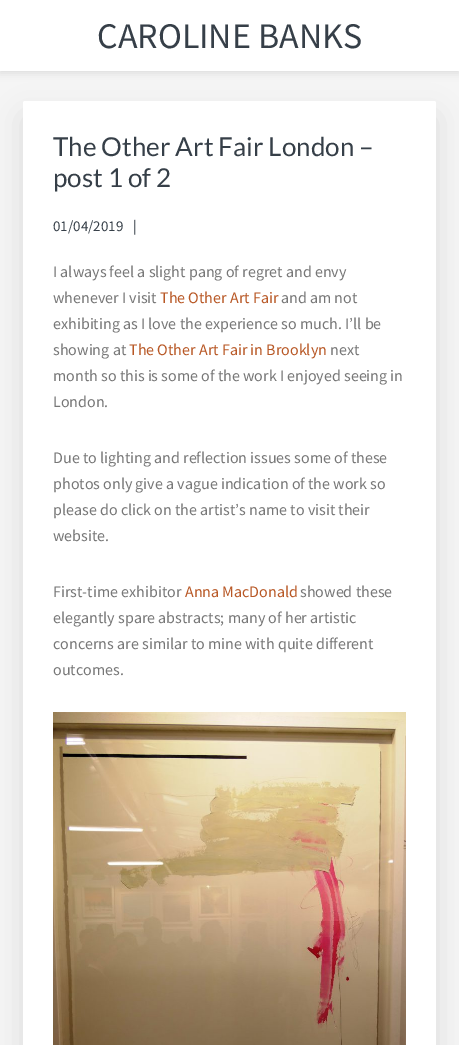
%!PS
<< /PageSize [459 1045] /PageUsesTransparency true >> setpagedevice
/fl/fill load def
/co { dup -16 bitshift 255 div exch dup -8 bitshift 255 and 255 div exch 255 and 255 div setrgbcolor } def
/fn { [ exch dup neg 0 0 3 -1 roll 0 0 ] selectfont } def
/tx { co fn moveto show } def
/bx { co rectfill } def
/al { dup .setfillconstantalpha .setstrokeconstantalpha } def
/rr { 5 dict begin { /r /h /w /y /x } { exch def } forall
  x r add y moveto x w add y 2 copy h add r arct x w add y h add x 1 index r arct
  x y h add x y r arct x y 2 copy exch w add exch r arct closepath end } def
/sh { 12 dict begin { /a /b /q /h /w /y /x } { exch def } forall gsave /was 0 def
  9 -2 -9 { dup b mul 4 div /e exch def 1 sub .425 mul 2.718 exch exp 1 add a .99 .min exch div /now exch def
    1 1 now sub 1 was sub div sub al /was now def
    w h .min e 2 mul add 0 gt { x e sub y e sub w e 2 mul add h e 2 mul add
      q e add b .6 mul add w h .min 2 div e add .min 0 .max rr fill } if } for grestore end } def
/im { 5 dict begin { /h /w /y /x /name } { exch def } forall
  gsave x y translate w h scale
  w h 8 [w 0 0 h 0 0] name (r) file false 3 colorimage grestore end } def
0 .pushpdf14devicefilter
0 1045 translate 1 -1 scale
4 setmiterlimit
0 0 459 1045 16#F5F5F5 bx
16#000000 co
0 2 459 71 0 4 .1 sh
0 0 459 71 16#FFFFFF bx
16#000000 co
23 116 413 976 2 15 .1 sh
16#FFFFFF co
23 101 413 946 2 rr fl
(media/1.raw) 53 712 353 333 im
(CAROLINE BANKS) 97 48 /SourceSansPro-Regular 36 16#363F48 tx
(The Other Art Fair London –) 53 156 /Lato-Regular 26 16#363F48 tx
(post 1 of 2) 53 187 /Lato-Regular 26 16#363F48 tx
(01/04/2019) 53 231 /SourceSansPro-Regular 15 16#363F48 tx
(|) 133 231 /SourceSansPro-Regular 15 16#363F48 tx
(I always feel a slight pang of regret and envy) 53 277 /SourceSansPro-Regular 16 16#777777 tx
(whenever I visit) 53 303 /SourceSansPro-Regular 16 16#777777 tx
(The Other Art Fair) 160 303 /SourceSansPro-Regular 16 16#B85826 tx
(and am not) 281 303 /SourceSansPro-Regular 16 16#777777 tx
(exhibiting as I love the experience so much. I’ll be) 53 329 /SourceSansPro-Regular 16 16#777777 tx
(showing at) 53 355 /SourceSansPro-Regular 16 16#777777 tx
(The Other Art Fair in Brooklyn) 129 355 /SourceSansPro-Regular 16 16#B85826 tx
(next) 330 355 /SourceSansPro-Regular 16 16#777777 tx
(month so this is some of the work I enjoyed seeing in) 53 381 /SourceSansPro-Regular 16 16#777777 tx
(London.) 53 407 /SourceSansPro-Regular 16 16#777777 tx
(Due to lighting and reflection issues some of these) 53 463 /SourceSansPro-Regular 16 16#777777 tx
(photos only give a vague indication of the work so) 53 489 /SourceSansPro-Regular 16 16#777777 tx
(please do click on the artist’s name to visit their) 53 515 /SourceSansPro-Regular 16 16#777777 tx
(website.) 53 541 /SourceSansPro-Regular 16 16#777777 tx
(First-time exhibitor) 53 597 /SourceSansPro-Regular 16 16#777777 tx
(Anna MacDonald) 185 597 /SourceSansPro-Regular 16 16#B85826 tx
(showed these) 300 597 /SourceSansPro-Regular 16 16#777777 tx
(elegantly spare abstracts; many of her artistic) 53 623 /SourceSansPro-Regular 16 16#777777 tx
(concerns are similar to mine with quite different) 53 649 /SourceSansPro-Regular 16 16#777777 tx
(outcomes.) 53 675 /SourceSansPro-Regular 16 16#777777 tx
.poppdf14devicefilter showpage
